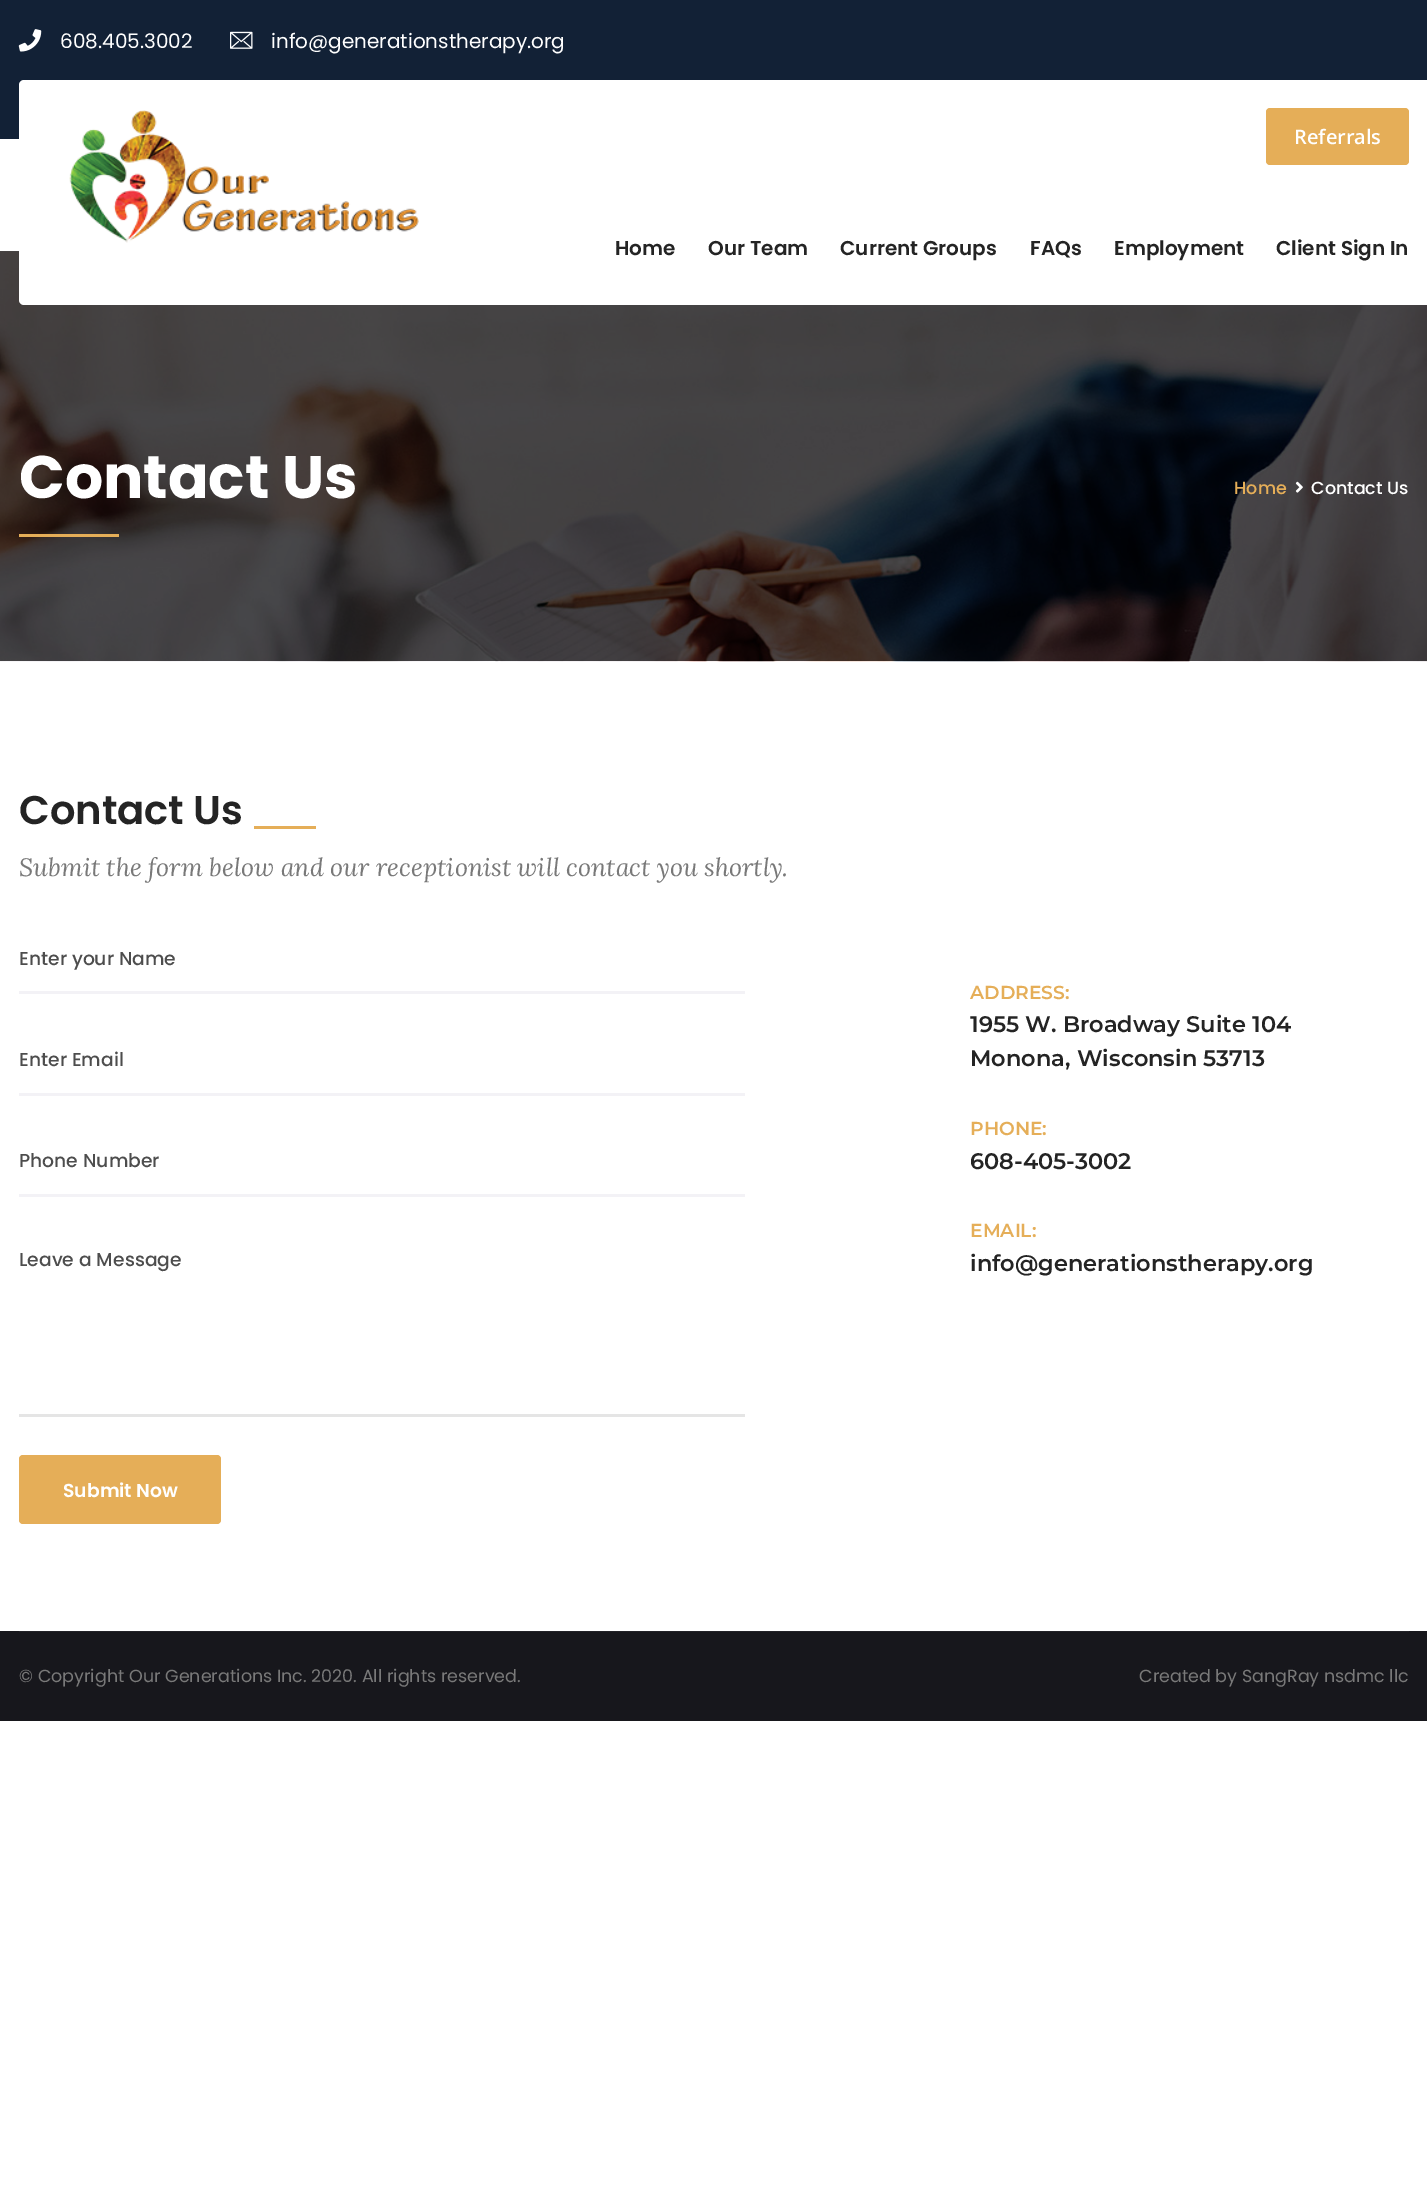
%!PS
<< /PageSize [1427 2199] >> setpagedevice
/fl/fill load def
/co { dup -16 bitshift 255 div exch dup -8 bitshift 255 and 255 div exch 255 and 255 div setrgbcolor } def
/fn { [ exch dup neg 0 0 3 -1 roll 0 0 ] selectfont } def
/tx { co fn moveto show } def
/bx { co rectfill } def
/rr { 5 dict begin { /r /h /w /y /x } { exch def } forall
  x r add y moveto x w add y 2 copy h add r arct x w add y h add x 1 index r arct
  x y h add x y r arct x y 2 copy exch w add exch r arct closepath end } def
/im { 5 dict begin { /h /w /y /x /name } { exch def } forall
  gsave x y translate w h scale
  w h 8 [w 0 0 h 0 0] name (r) file false 3 colorimage grestore end } def
0 2199 translate 1 -1 scale
4 setmiterlimit
0 0 1427 2199 16#FFFFFF bx
0 0 1427 80 16#122136 bx
(media/1.raw) 18 29 24 23 im
(media/2.raw) 230 31 23 18 im
0 80 24 59 16#122136 bx
(media/4.raw) 0 251 1427 411 im
1404 251 23 54 16#FFFFFF bx
19 80 1390 225 5 rr fl
(media/3.raw) 69 110 350 133 im
16#E5AE58 co
1266 108 143 57 4 rr fl
19 534 100 3 16#E5AE58 bx
(media/5.raw) 1295 481 8 12 im
254 826 62 3 16#E5AE58 bx
19 991 726 3 16#F3F2F6 bx
19 1093 726 3 16#F3F2F6 bx
19 1194 726 3 16#F3F2F6 bx
19 1414 726 3 16#E5E5E5 bx
16#E5AE58 co
19 1455 202 69 4 rr fl
0 1631 1427 90 16#17171C bx
19 1631 1390 1 16#222227 bx
(608.405.3002) 60 48 /Poppins-Regular 20 16#FFFFFF tx
(info@generationstherapy.org) 271 48 /Poppins-Regular 20 16#FFFFFF tx
(Referrals) 1294 144 /OpenSans-SemiBold 20 16#FFFFFF tx
(Home) 615 255 /Poppins-SemiBold 20 16#242424 tx
(Our Team) 708 255 /Poppins-SemiBold 20 16#242424 tx
(Current Groups) 840 255 /Poppins-SemiBold 20 16#242424 tx
(FAQs) 1030 255 /Poppins-SemiBold 20 16#242424 tx
(Employment) 1114 255 /Poppins-SemiBold 20 16#242424 tx
(Client Sign In) 1276 255 /Poppins-SemiBold 20 16#242424 tx
(Contact Us) 19 498 /Poppins-Bold 60 16#FFFFFF tx
(Home) 1234 494 /Poppins-Medium 17.5 16#E5AE58 tx
(Contact Us) 1311 494 /Poppins-Medium 17.5 16#FFFFFF tx
(Contact Us) 19 824 /Poppins-SemiBold 40 16#242424 tx
(Submit the form below and our receptionist will contact you shortly.) 19 876 /Lora-Italic 25 16#797979 tx
(Enter your Name) 19 965 /Poppins-Medium 18.75 16#4D4D4D tx
(Enter Email) 19 1066 /Poppins-Medium 18.75 16#4D4D4D tx
(Phone Number) 19 1167 /Poppins-Medium 18.75 16#4D4D4D tx
(Leave a Message) 19 1266 /Poppins-Medium 18.75 16#4D4D4D tx
(Submit Now) 63 1497 /Poppins-SemiBold 18.75 16#FFFFFF tx
(ADDRESS:) 970 999 /Montserrat-SemiBold 18.75 16#E5AE58 tx
(1955 W. Broadway Suite 104) 970 1032 /Montserrat-SemiBold 22.5 16#242424 tx
(Monona, Wisconsin 53713) 970 1066 /Montserrat-SemiBold 22.5 16#242424 tx
(PHONE:) 970 1135 /Montserrat-SemiBold 18.75 16#E5AE58 tx
(608-405-3002) 970 1169 /Montserrat-SemiBold 22.5 16#242424 tx
(EMAIL:) 970 1237 /Montserrat-SemiBold 18.75 16#E5AE58 tx
(info@generationstherapy.org) 970 1271 /Montserrat-SemiBold 22.5 16#242424 tx
(© Copyright Our Generations Inc. 2020. All rights reserved.) 19 1682 /Poppins-Regular 17.5 16#797979 tx
(Created by SangRay nsdmc llc) 1139 1682 /Poppins-Regular 17.5 16#797979 tx
showpage
